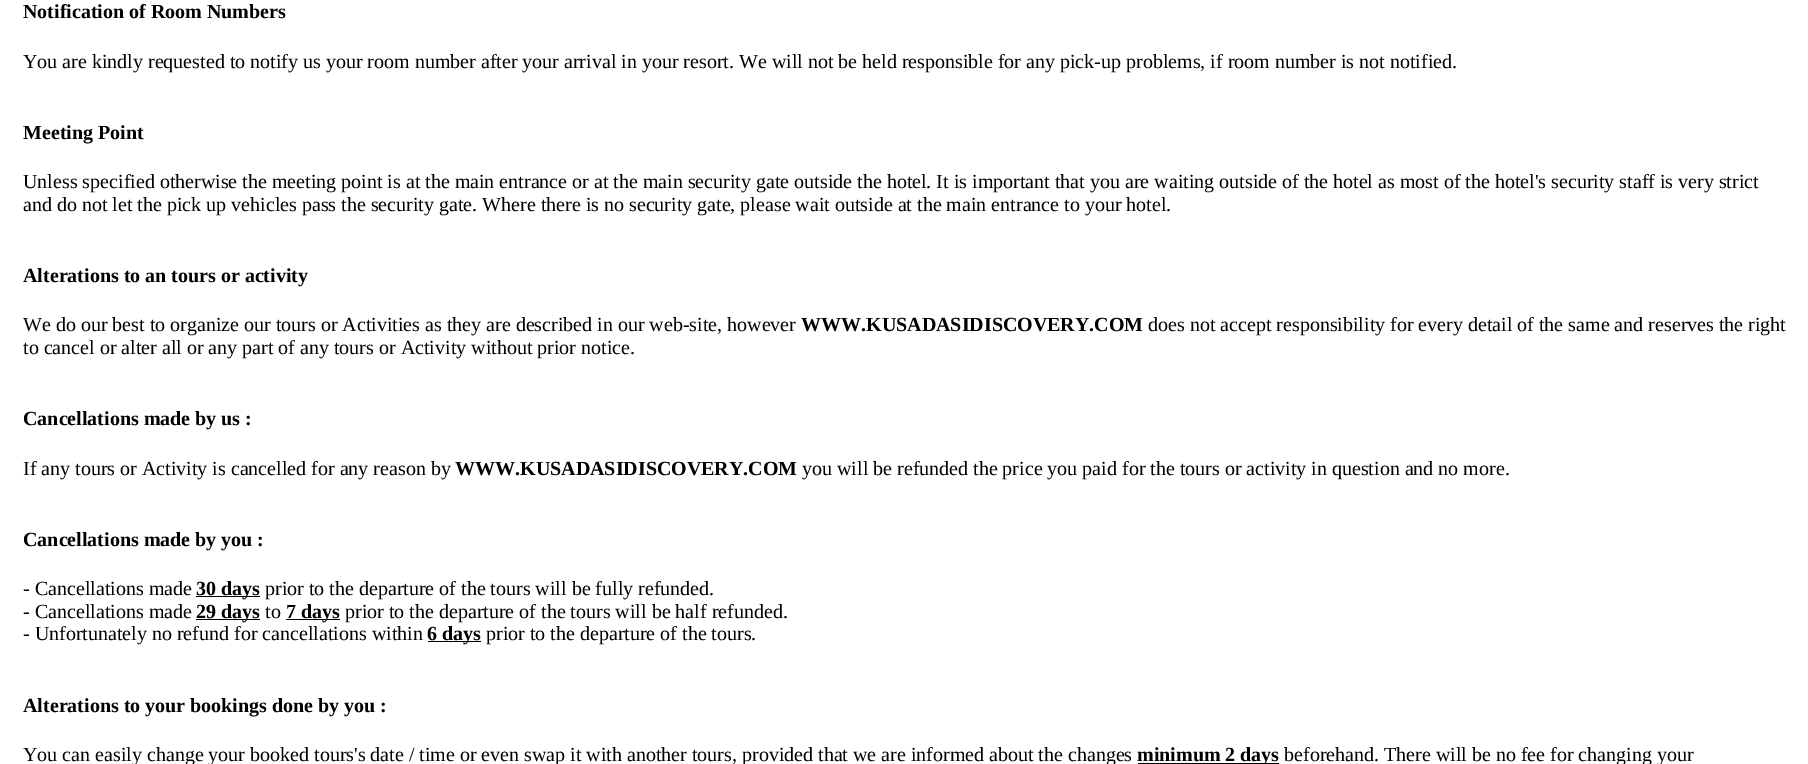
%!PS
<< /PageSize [1808 764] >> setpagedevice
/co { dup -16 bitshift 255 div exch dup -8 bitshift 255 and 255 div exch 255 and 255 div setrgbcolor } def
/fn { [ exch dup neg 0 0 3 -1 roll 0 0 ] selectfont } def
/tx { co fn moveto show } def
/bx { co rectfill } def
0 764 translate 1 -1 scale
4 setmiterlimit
0 0 1808 764 16#FFFFFF bx
196 596 64 1 16#000000 bx
196 619 64 1 16#000000 bx
286 619 54 1 16#000000 bx
428 641 53 1 16#000000 bx
1138 763 141 1 16#000000 bx
(Notification of Room Numbers) 23 18 /LiberationSerif-Bold 20 16#000000 tx
(You are kindly requested to notify us your room number after your arrival in your resort. We will not be held responsible for any pick-up problems, if room number is not notified.) 23 68 /LiberationSerif-Regular 20 16#000000 tx
(Meeting Point) 23 139 /LiberationSerif-Bold 20 16#000000 tx
(Unless specified otherwise the meeting point is at the main entrance or at the main security gate outside the hotel. It is important that you are waiting outside of the hotel as most of the hotel's security staff is very strict) 23 188 /LiberationSerif-Regular 20 16#000000 tx
(and do not let the pick up vehicles pass the security gate. Where there is no security gate, please wait outside at the main entrance to your hotel.) 23 211 /LiberationSerif-Regular 20 16#000000 tx
(Alterations to an tours or activity) 23 282 /LiberationSerif-Bold 20 16#000000 tx
(We do our best to organize our tours or Activities as they are described in our web-site, however) 23 331 /LiberationSerif-Regular 20 16#000000 tx
(WWW.KUSADASIDISCOVERY.COM) 801 331 /LiberationSerif-Bold 20 16#000000 tx
(does not accept responsibility for every detail of the same and reserves the right) 1148 331 /LiberationSerif-Regular 20 16#000000 tx
(to cancel or alter all or any part of any tours or Activity without prior notice.) 23 354 /LiberationSerif-Regular 20 16#000000 tx
(Cancellations made by us :) 23 425 /LiberationSerif-Bold 20 16#000000 tx
(If any tours or Activity is cancelled for any reason by) 23 475 /LiberationSerif-Regular 20 16#000000 tx
(WWW.KUSADASIDISCOVERY.COM) 455 475 /LiberationSerif-Bold 20 16#000000 tx
(you will be refunded the price you paid for the tours or activity in question and no more.) 802 475 /LiberationSerif-Regular 20 16#000000 tx
(Cancellations made by you :) 23 546 /LiberationSerif-Bold 20 16#000000 tx
(- Cancellations made) 23 595 /LiberationSerif-Regular 20 16#000000 tx
(30 days) 196 595 /LiberationSerif-Bold 20 16#000000 tx
(prior to the departure of the tours will be fully refunded.) 265 595 /LiberationSerif-Regular 20 16#000000 tx
(- Cancellations made) 23 618 /LiberationSerif-Regular 20 16#000000 tx
(29 days) 196 618 /LiberationSerif-Bold 20 16#000000 tx
(to) 265 618 /LiberationSerif-Regular 20 16#000000 tx
(7 days) 286 618 /LiberationSerif-Bold 20 16#000000 tx
(prior to the departure of the tours will be half refunded.) 345 618 /LiberationSerif-Regular 20 16#000000 tx
(- Unfortunately no refund for cancellations within) 23 640 /LiberationSerif-Regular 20 16#000000 tx
(6 days) 427 640 /LiberationSerif-Bold 20 16#000000 tx
(prior to the departure of the tours.) 486 640 /LiberationSerif-Regular 20 16#000000 tx
(Alterations to your bookings done by you :) 23 712 /LiberationSerif-Bold 20 16#000000 tx
(You can easily change your booked tours's date / time or even swap it with another tours, provided that we are informed about the changes) 23 761 /LiberationSerif-Regular 20 16#000000 tx
(minimum 2 days) 1137 761 /LiberationSerif-Bold 20 16#000000 tx
(beforehand. There will be no fee for changing your) 1284 761 /LiberationSerif-Regular 20 16#000000 tx
showpage
